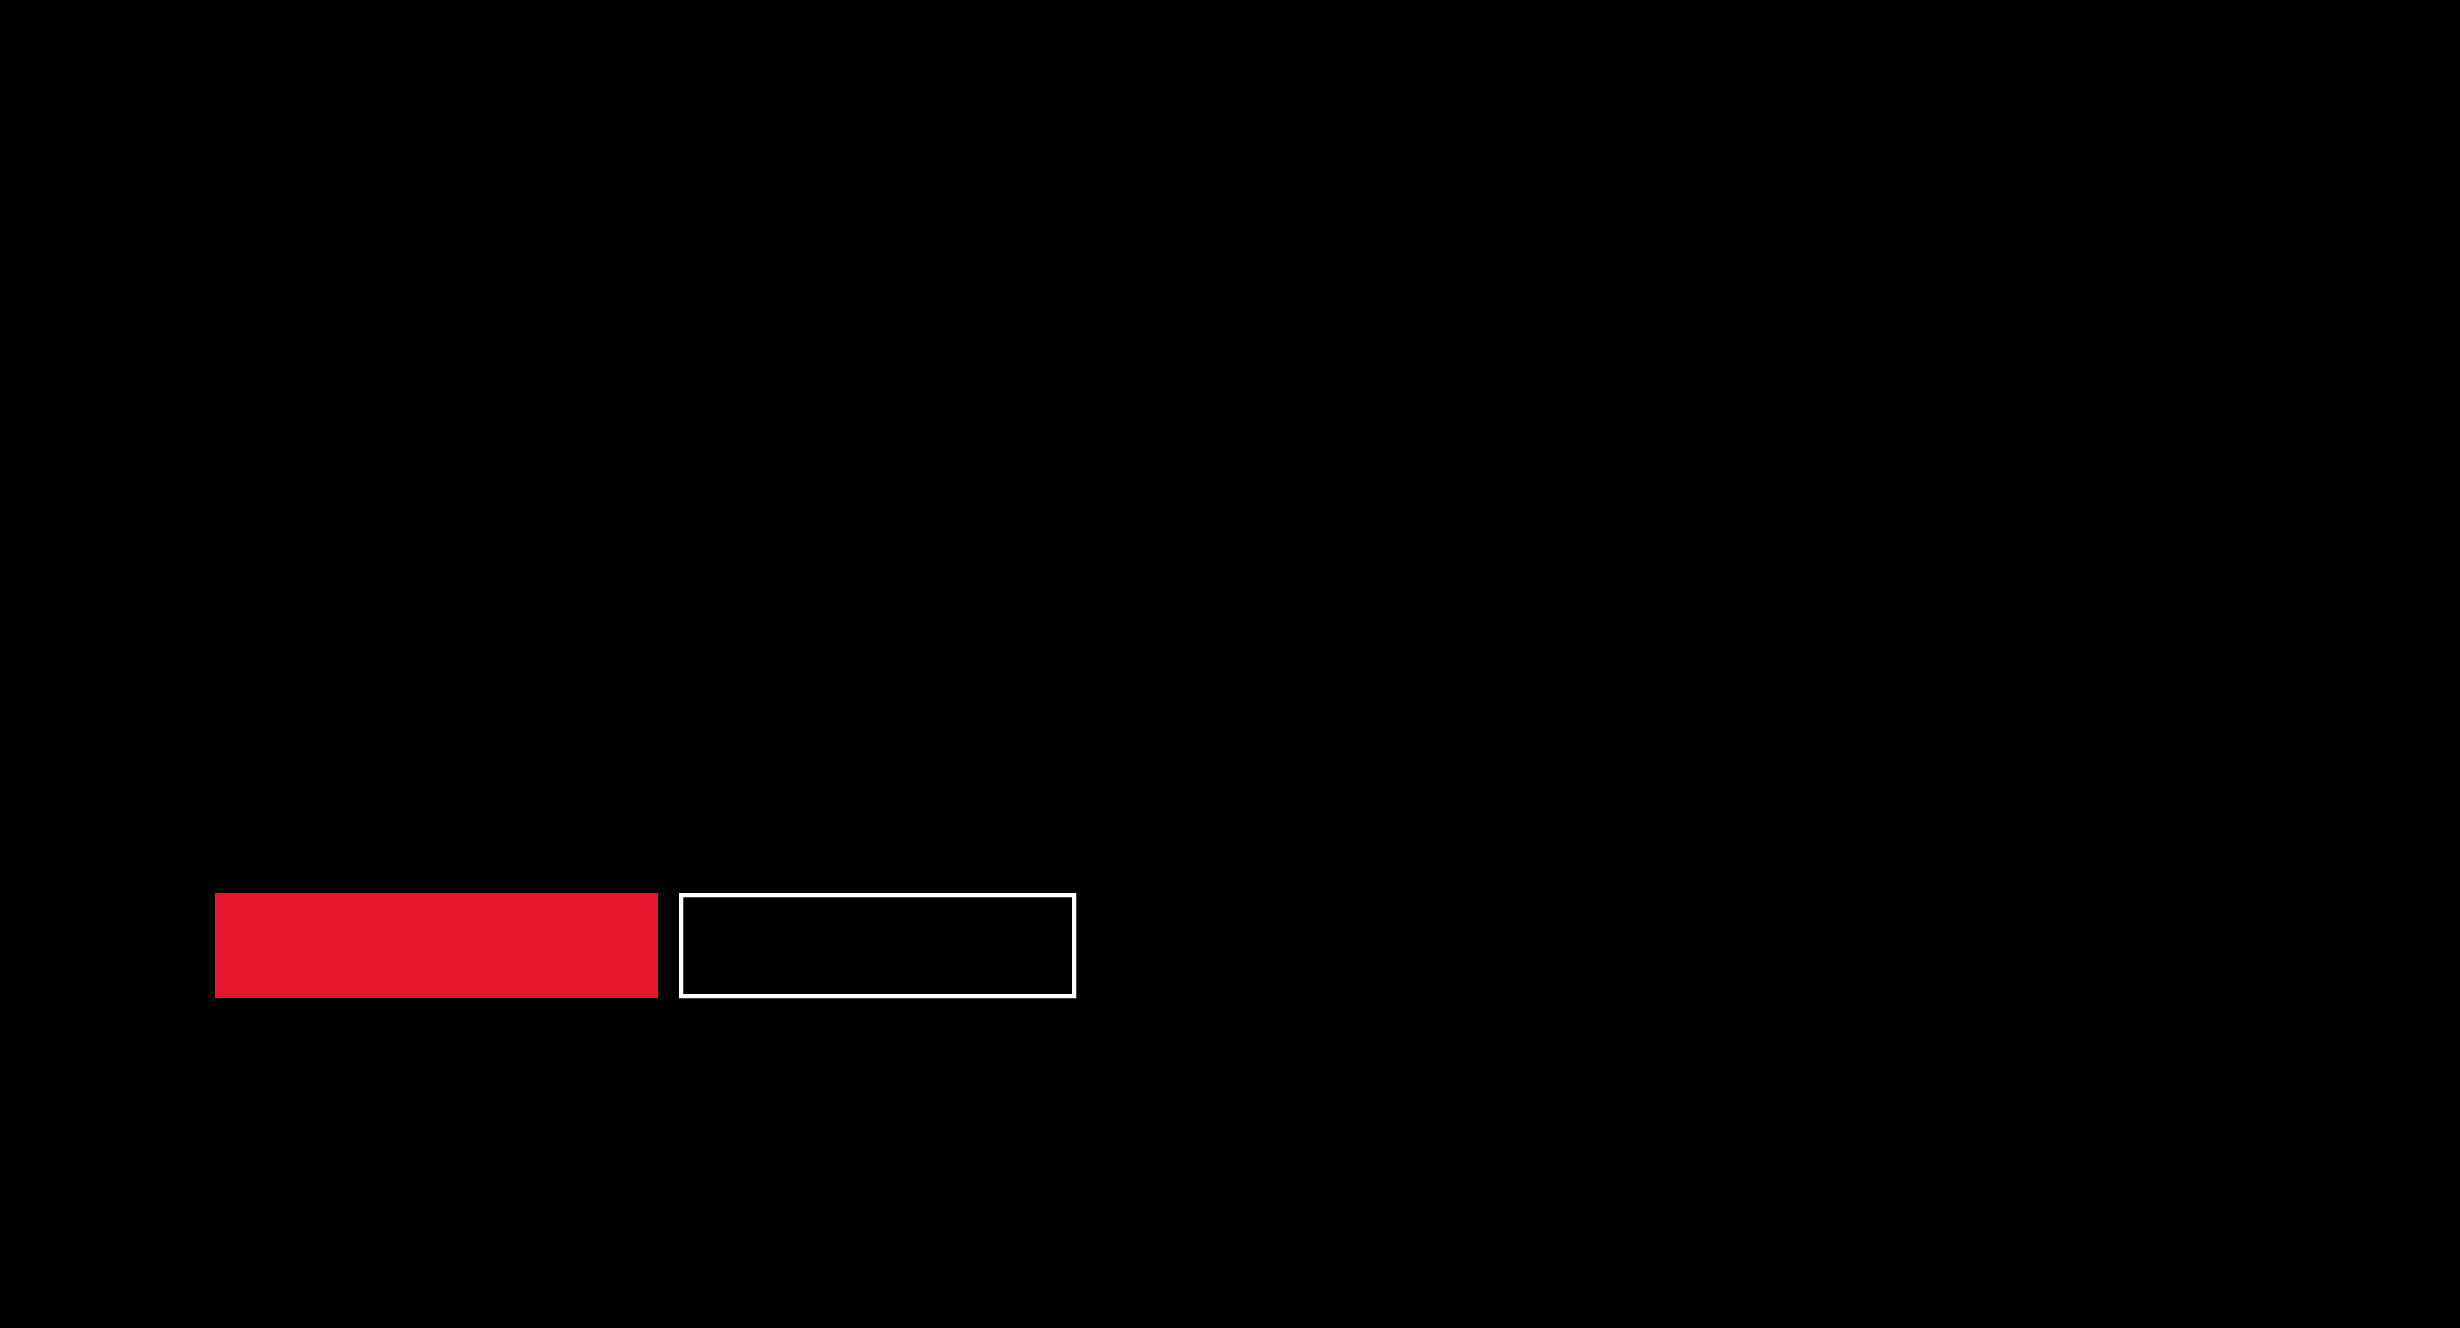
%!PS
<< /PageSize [2460 1328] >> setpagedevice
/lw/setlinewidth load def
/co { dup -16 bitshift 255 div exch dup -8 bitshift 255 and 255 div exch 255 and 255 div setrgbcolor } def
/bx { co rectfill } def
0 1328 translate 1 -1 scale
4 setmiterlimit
0 0 2460 1328 16#000000 bx
215 893 443 105 16#E8152E bx
16#FFFFFF co
4 lw
681 895 393 101 rectstroke
showpage
